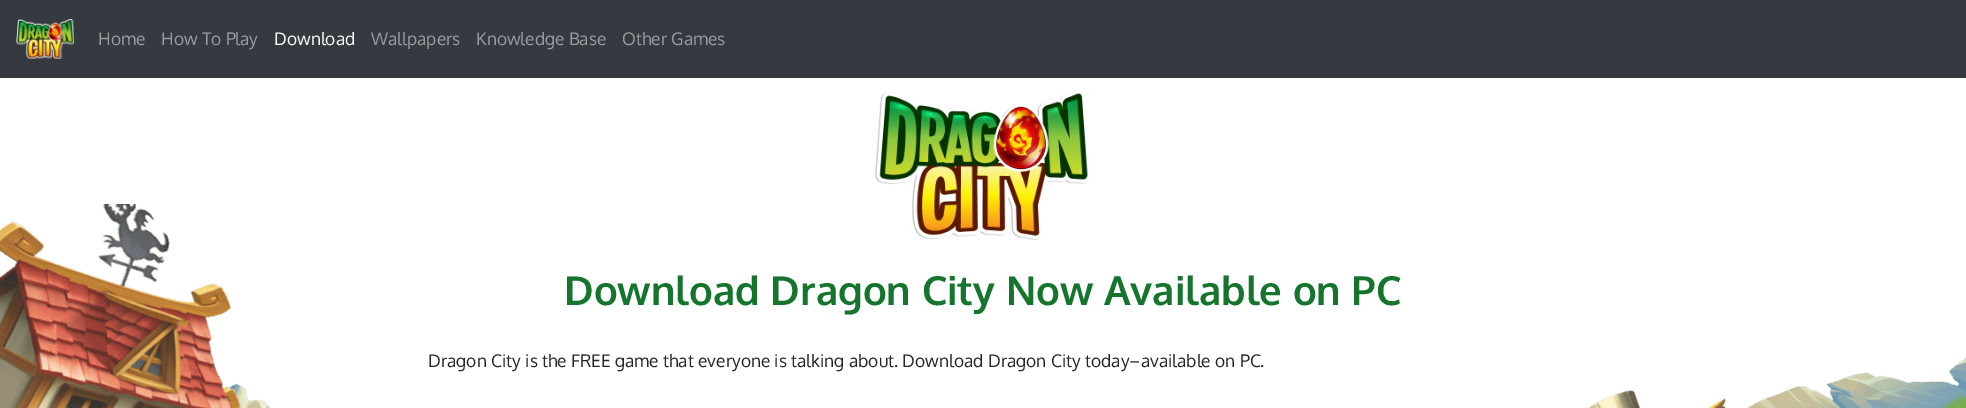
%!PS
<< /PageSize [1966 408] >> setpagedevice
/co { dup -16 bitshift 255 div exch dup -8 bitshift 255 and 255 div exch 255 and 255 div setrgbcolor } def
/fn { [ exch dup neg 0 0 3 -1 roll 0 0 ] selectfont } def
/tx { co fn moveto show } def
/bx { co rectfill } def
/im { 5 dict begin { /h /w /y /x /name } { exch def } forall
  gsave x y translate w h scale
  w h 8 [w 0 0 h 0 0] name (r) file false 3 colorimage grestore end } def
0 408 translate 1 -1 scale
4 setmiterlimit
0 0 1966 408 16#FFFFFF bx
(media/1.raw) 0 204 1966 204 im
0 0 1966 78 16#343A40 bx
(media/2.raw) 16 19 58 40 im
(media/3.raw) 875 90 213 150 im
(Home) 98 45 /Oxygen-Regular 17.35 16#9A9DA0 tx
(How To Play) 161 45 /Oxygen-Regular 17.35 16#9A9DA0 tx
(Download) 274 45 /Oxygen-Regular 17.35 16#FFFFFF tx
(Wallpapers) 371 45 /Oxygen-Regular 17.35 16#9A9DA0 tx
(Knowledge Base) 476 45 /Oxygen-Regular 17.35 16#9A9DA0 tx
(Other Games) 622 45 /Oxygen-Regular 17.35 16#9A9DA0 tx
(Download Dragon City Now Available on PC) 564 305 /Oxygen-Bold 40 16#15752D tx
(Dragon City is the FREE game that everyone is talking about. Download Dragon City today–available on PC.) 428 367 /Oxygen-Regular 17.35 16#212529 tx
showpage
